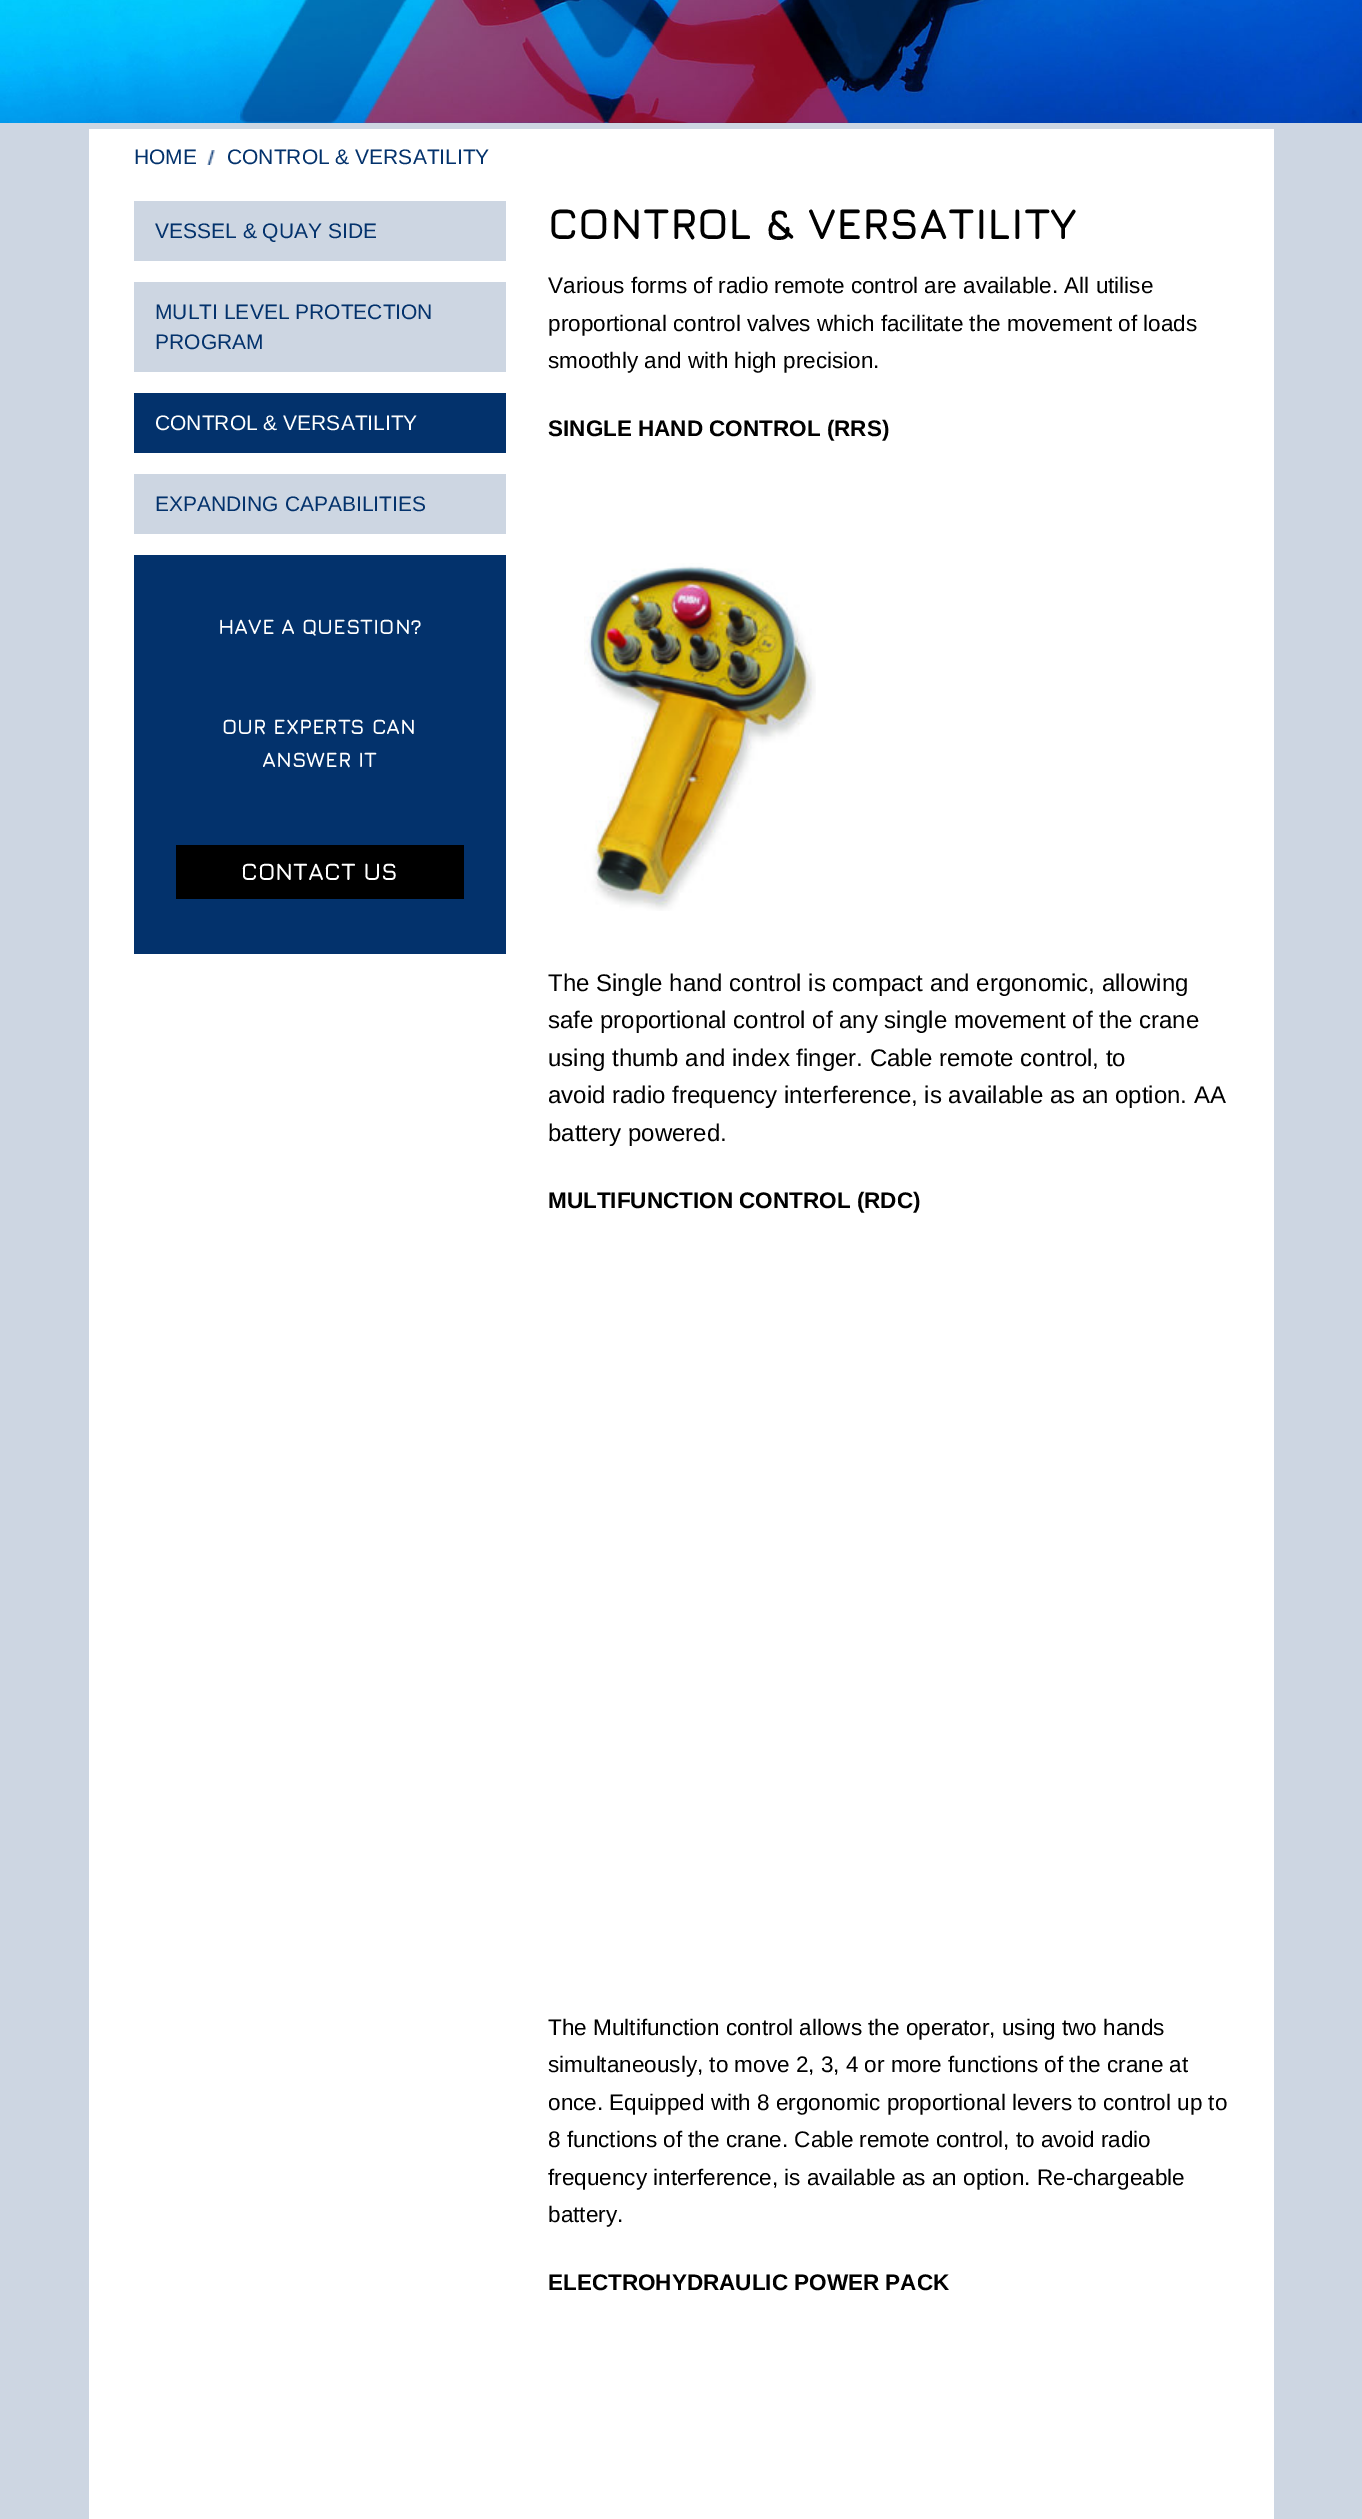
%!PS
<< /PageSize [1362 2519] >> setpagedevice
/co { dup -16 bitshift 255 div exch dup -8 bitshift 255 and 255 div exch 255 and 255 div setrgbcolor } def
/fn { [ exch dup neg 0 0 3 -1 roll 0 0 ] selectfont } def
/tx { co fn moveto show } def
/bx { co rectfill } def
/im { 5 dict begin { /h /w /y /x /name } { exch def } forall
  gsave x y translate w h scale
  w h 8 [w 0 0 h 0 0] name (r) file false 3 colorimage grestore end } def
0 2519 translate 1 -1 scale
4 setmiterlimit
0 0 1362 2519 16#CDD6E2 bx
(media/1.raw) 0 0 1362 123 im
89 129 1185 2390 16#FFFFFF bx
(media/2.raw) 207 150 8 15 im
134 201 372 60 16#CDD6E2 bx
134 282 372 90 16#CDD6E2 bx
134 393 372 60 16#03326C bx
134 474 372 60 16#CDD6E2 bx
134 555 372 399 16#03326C bx
176 845 288 54 16#000000 bx
(media/3.raw) 584 563 232 348 im
(HOME) 134 164 /LiberationSans-Regular 21 16#03326C tx
(CONTROL & VERSATILITY) 227 164 /LiberationSans-Regular 21 16#03326C tx
(VESSEL & QUAY SIDE) 155 238 /LiberationSans-Regular 21 16#03326C tx
(MULTI LEVEL PROTECTION) 155 319 /LiberationSans-Regular 21 16#03326C tx
(PROGRAM) 155 349 /LiberationSans-Regular 21 16#03326C tx
(CONTROL & VERSATILITY) 155 430 /LiberationSans-Regular 21 16#FFFFFF tx
(EXPANDING CAPABILITIES) 155 511 /LiberationSans-Regular 21 16#03326C tx
(HAVE A QUESTION?) 218 634 /Jura-Bold 21 16#FFFFFF tx
(OUR EXPERTS CAN) 222 734 /Jura-Bold 21 16#FFFFFF tx
(ANSWER IT) 262 767 /Jura-Bold 21 16#FFFFFF tx
(CONTACT US) 241 880 /Jura-Bold 24 16#FFFFFF tx
(CONTROL & VERSATILITY) 548 239 /Jura-Bold 43.5 16#000000 tx
(Various forms of radio remote control are available. All utilise) 548 293 /LiberationSans-Regular 22.5 16#000000 tx
(proportional control valves which facilitate the movement of loads) 548 331 /LiberationSans-Regular 22.5 16#000000 tx
(smoothly and with high precision.) 548 368 /LiberationSans-Regular 22.5 16#000000 tx
(SINGLE HAND CONTROL \(RRS\)) 548 436 /LiberationSans-Bold 22.5 16#000000 tx
(The Single hand control is compact and ergonomic, allowing) 548 991 /LiberationSans-Regular 24 16#000000 tx
(safe proportional control of any single movement of the crane) 548 1028 /LiberationSans-Regular 24 16#000000 tx
(using thumb and index finger. Cable remote control, to) 548 1066 /LiberationSans-Regular 24 16#000000 tx
(avoid radio frequency interference, is available as an option. AA) 548 1103 /LiberationSans-Regular 24 16#000000 tx
(battery powered.) 548 1141 /LiberationSans-Regular 24 16#000000 tx
(MULTIFUNCTION CONTROL \(RDC\)) 548 1208 /LiberationSans-Bold 22.5 16#000000 tx
(The Multifunction control allows the operator, using two hands) 548 2035 /LiberationSans-Regular 22.5 16#000000 tx
(simultaneously, to move 2, 3, 4 or more functions of the crane at) 548 2072 /LiberationSans-Regular 22.5 16#000000 tx
(once. Equipped with 8 ergonomic proportional levers to control up to) 548 2110 /LiberationSans-Regular 22.5 16#000000 tx
(8 functions of the crane. Cable remote control, to avoid radio) 548 2147 /LiberationSans-Regular 22.5 16#000000 tx
(frequency interference, is available as an option. Re-chargeable) 548 2185 /LiberationSans-Regular 22.5 16#000000 tx
(battery.) 548 2222 /LiberationSans-Regular 22.5 16#000000 tx
(ELECTROHYDRAULIC POWER PACK) 548 2290 /LiberationSans-Bold 22.5 16#000000 tx
showpage
